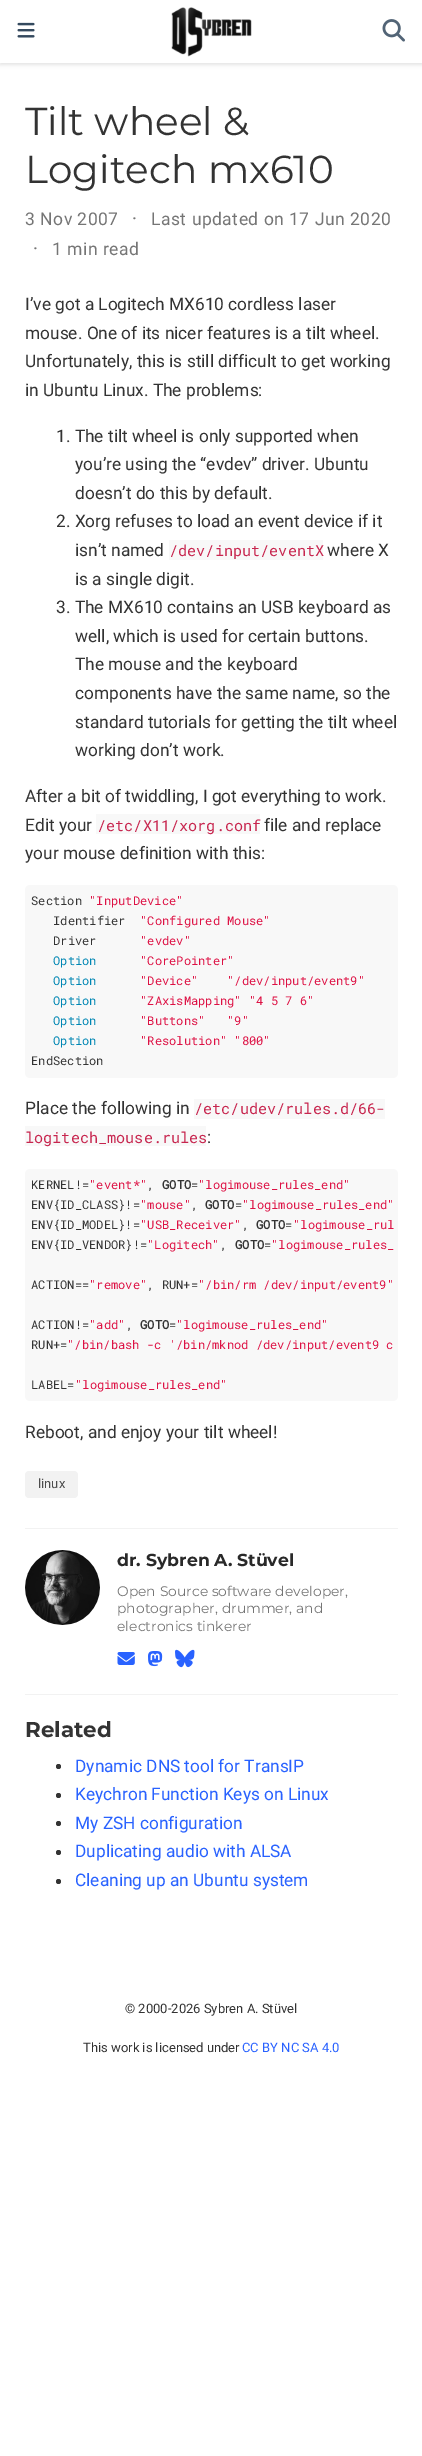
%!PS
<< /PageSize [422 2456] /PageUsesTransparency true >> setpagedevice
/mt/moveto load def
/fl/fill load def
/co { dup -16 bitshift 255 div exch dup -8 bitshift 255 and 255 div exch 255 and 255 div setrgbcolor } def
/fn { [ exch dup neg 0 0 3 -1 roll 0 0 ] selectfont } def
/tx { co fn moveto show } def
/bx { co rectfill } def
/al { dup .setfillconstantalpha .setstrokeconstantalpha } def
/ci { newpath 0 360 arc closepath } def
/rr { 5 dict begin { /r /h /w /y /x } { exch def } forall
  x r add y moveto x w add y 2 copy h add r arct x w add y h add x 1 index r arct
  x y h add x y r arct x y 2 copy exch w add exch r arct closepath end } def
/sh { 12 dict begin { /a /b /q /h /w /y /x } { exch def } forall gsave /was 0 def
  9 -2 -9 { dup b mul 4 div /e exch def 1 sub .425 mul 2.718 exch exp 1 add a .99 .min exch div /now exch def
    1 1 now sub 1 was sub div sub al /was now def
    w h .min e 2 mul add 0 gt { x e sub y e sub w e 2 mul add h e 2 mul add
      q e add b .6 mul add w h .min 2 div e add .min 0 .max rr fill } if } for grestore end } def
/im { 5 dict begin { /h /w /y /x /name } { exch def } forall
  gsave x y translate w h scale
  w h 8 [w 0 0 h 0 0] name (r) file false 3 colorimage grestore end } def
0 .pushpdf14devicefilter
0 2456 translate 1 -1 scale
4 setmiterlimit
0 0 422 2456 16#FFFFFF bx
16#000000 co
0 3 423 62 0 2 .11 sh
0 0 422 63 16#FFFFFF bx
(media/1.raw) 17 22 18 16 im
(media/2.raw) 171 7 81 50 im
(media/3.raw) 382 19 23 23 im
169 540 154 20 16#F8F8F8 bx
96 814 164 20 16#F8F8F8 bx
25 885 373 193 5 rr fl
194 1099 191 20 16#F8F8F8 bx
25 1126 181 20 16#F8F8F8 bx
25 1169 373 232 5 rr fl
16#F2F2F2 co
25 1471 53 27 4 rr fl
25 1528 373 1 16#F2F2F2 bx
(media/4.raw) 25 1550 75 75 im
(media/5.raw) 117 1652 18 13 im
(media/6.raw) 148 1651 15 16 im
(media/7.raw) 175 1649 20 19 im
25 1694 373 1 16#F2F2F2 bx
16#333333 co
58.5 1766.5 2.5 ci fl
58.5 1795.5 2.5 ci fl
58.5 1823.5 2.5 ci fl
58.5 1852.5 2.5 ci fl
58.5 1881.5 2.5 ci fl
(Tilt wheel &) 25 135 /Montserrat-Regular 39 16#333333 tx
(Logitech mx610) 25 183 /Montserrat-Regular 39 16#333333 tx
/Roboto-Regular 17.5 fn
16#757575 co
25 225 mt .5 0 (3 Nov 2007) ashow
/Roboto-Regular 19 fn
132 225 mt .5 0 (·) ashow
/Roboto-Regular 17.5 fn
151 225 mt .5 0 (Last updated on 17 Jun 2020) ashow
/Roboto-Regular 19 fn
33 255 mt .5 0 (·) ashow
/Roboto-Regular 17.5 fn
52 255 mt .5 0 (1 min read) ashow
(I’ve got a Logitech MX610 cordless laser) 25 310 /Roboto-Regular 17.3 16#333333 tx
(mouse. One of its nicer features is a tilt wheel.) 25 339 /Roboto-Regular 17.3 16#333333 tx
(Unfortunately, this is still difficult to get working) 25 367 /Roboto-Regular 17.3 16#333333 tx
(in Ubuntu Linux. The problems:) 25 396 /Roboto-Regular 17.3 16#333333 tx
(1. The tilt wheel is only supported when) 56 442 /Roboto-Regular 17.3 16#333333 tx
(you’re using the “evdev” driver. Ubuntu) 75 470 /Roboto-Regular 17.3 16#333333 tx
(doesn’t do this by default.) 75 499 /Roboto-Regular 17.3 16#333333 tx
(2. Xorg refuses to load an event device if it) 56 527 /Roboto-Regular 17.3 16#333333 tx
(isn’t named) 75 556 /Roboto-Regular 17.3 16#333333 tx
(/dev/input/eventX) 169 556 /RobotoMono-Regular 15.2 16#C7254E tx
(where X) 327 556 /Roboto-Regular 17.3 16#333333 tx
(is a single digit.) 75 585 /Roboto-Regular 17.3 16#333333 tx
(3. The MX610 contains an USB keyboard as) 56 613 /Roboto-Regular 17.3 16#333333 tx
(well, which is used for certain buttons.) 75 642 /Roboto-Regular 17.3 16#333333 tx
(The mouse and the keyboard) 75 670 /Roboto-Regular 17.3 16#333333 tx
(components have the same name, so the) 75 699 /Roboto-Regular 17.3 16#333333 tx
(standard tutorials for getting the tilt wheel) 75 728 /Roboto-Regular 17.3 16#333333 tx
(working don’t work.) 75 756 /Roboto-Regular 17.3 16#333333 tx
(After a bit of twiddling, I got everything to work.) 25 802 /Roboto-Regular 17.3 16#333333 tx
(Edit your) 25 831 /Roboto-Regular 17.3 16#333333 tx
(/etc/X11/xorg.conf) 97 831 /RobotoMono-Regular 15.2 16#C7254E tx
(file and replace) 264 831 /Roboto-Regular 17.3 16#333333 tx
(your mouse definition with this:) 25 859 /Roboto-Regular 17.3 16#333333 tx
(Section) 31 905 /RobotoMono-Regular 12.1 16#333333 tx
("InputDevice") 89 905 /RobotoMono-Regular 12.1 16#DD1144 tx
(Identifier) 53 925 /RobotoMono-Regular 12.1 16#333333 tx
("Configured Mouse") 140 925 /RobotoMono-Regular 12.1 16#DD1144 tx
(Driver) 53 945 /RobotoMono-Regular 12.1 16#333333 tx
("evdev") 140 945 /RobotoMono-Regular 12.1 16#DD1144 tx
(Option) 53 965 /RobotoMono-Regular 12.1 16#0086B3 tx
("CorePointer") 140 965 /RobotoMono-Regular 12.1 16#DD1144 tx
(Option) 53 985 /RobotoMono-Regular 12.1 16#0086B3 tx
("Device") 140 985 /RobotoMono-Regular 12.1 16#DD1144 tx
("/dev/input/event9") 227 985 /RobotoMono-Regular 12.1 16#DD1144 tx
(Option) 53 1005 /RobotoMono-Regular 12.1 16#0086B3 tx
("ZAxisMapping" "4 5 7 6") 140 1005 /RobotoMono-Regular 12.1 16#DD1144 tx
(Option) 53 1025 /RobotoMono-Regular 12.1 16#0086B3 tx
("Buttons") 140 1025 /RobotoMono-Regular 12.1 16#DD1144 tx
("9") 227 1025 /RobotoMono-Regular 12.1 16#DD1144 tx
(Option) 53 1045 /RobotoMono-Regular 12.1 16#0086B3 tx
("Resolution" "800") 140 1045 /RobotoMono-Regular 12.1 16#DD1144 tx
(EndSection) 31 1065 /RobotoMono-Regular 12.1 16#333333 tx
(Place the following in) 25 1114 /Roboto-Regular 17.3 16#333333 tx
(/etc/udev/rules.d/66-) 194 1114 /RobotoMono-Regular 15.2 16#C7254E tx
(logitech_mouse.rules) 25 1143 /RobotoMono-Regular 15.2 16#C7254E tx
(:) 207 1143 /Roboto-Regular 17.3 16#333333 tx
(KERNEL!=) 31 1189 /RobotoMono-Regular 12.1 16#333333 tx
("event*") 89 1189 /RobotoMono-Regular 12.1 16#DD1144 tx
(GOTO) 162 1189 /RobotoMono-Bold 12.1 16#333333 tx
(=) 191 1189 /RobotoMono-Regular 12.1 16#333333 tx
("logimouse_rules_end") 198 1189 /RobotoMono-Regular 12.1 16#DD1144 tx
(,) 147 1189 /RobotoMono-Regular 12.1 16#333333 tx
(ENV{ID_CLASS}!=) 31 1209 /RobotoMono-Regular 12.1 16#333333 tx
("mouse") 140 1209 /RobotoMono-Regular 12.1 16#DD1144 tx
(GOTO) 205 1209 /RobotoMono-Bold 12.1 16#333333 tx
(=) 235 1209 /RobotoMono-Regular 12.1 16#333333 tx
("logimouse_rules_end") 242 1209 /RobotoMono-Regular 12.1 16#DD1144 tx
(,) 191 1209 /RobotoMono-Regular 12.1 16#333333 tx
(ENV{ID_MODEL}!=) 31 1229 /RobotoMono-Regular 12.1 16#333333 tx
("USB_Receiver") 140 1229 /RobotoMono-Regular 12.1 16#DD1144 tx
(GOTO) 256 1229 /RobotoMono-Bold 12.1 16#333333 tx
(=) 285 1229 /RobotoMono-Regular 12.1 16#333333 tx
("logimouse_rul) 293 1229 /RobotoMono-Regular 12.1 16#DD1144 tx
(,) 242 1229 /RobotoMono-Regular 12.1 16#333333 tx
(ENV{ID_VENDOR}!=) 31 1249 /RobotoMono-Regular 12.1 16#333333 tx
("Logitech") 147 1249 /RobotoMono-Regular 12.1 16#DD1144 tx
(GOTO) 235 1249 /RobotoMono-Bold 12.1 16#333333 tx
(=) 264 1249 /RobotoMono-Regular 12.1 16#333333 tx
("logimouse_rules_) 271 1249 /RobotoMono-Regular 12.1 16#DD1144 tx
(,) 220 1249 /RobotoMono-Regular 12.1 16#333333 tx
(ACTION==) 31 1289 /RobotoMono-Regular 12.1 16#333333 tx
("remove") 89 1289 /RobotoMono-Regular 12.1 16#DD1144 tx
(, RUN+=) 147 1289 /RobotoMono-Regular 12.1 16#333333 tx
("/bin/rm /dev/input/event9") 198 1289 /RobotoMono-Regular 12.1 16#DD1144 tx
(ACTION!=) 31 1329 /RobotoMono-Regular 12.1 16#333333 tx
("add") 89 1329 /RobotoMono-Regular 12.1 16#DD1144 tx
(GOTO) 140 1329 /RobotoMono-Bold 12.1 16#333333 tx
(=) 169 1329 /RobotoMono-Regular 12.1 16#333333 tx
("logimouse_rules_end") 176 1329 /RobotoMono-Regular 12.1 16#DD1144 tx
(,) 126 1329 /RobotoMono-Regular 12.1 16#333333 tx
(RUN+=) 31 1349 /RobotoMono-Regular 12.1 16#333333 tx
("/bin/bash -c '/bin/mknod /dev/input/event9 c) 67 1349 /RobotoMono-Regular 12.1 16#DD1144 tx
(LABEL=) 31 1389 /RobotoMono-Regular 12.1 16#333333 tx
("logimouse_rules_end") 75 1389 /RobotoMono-Regular 12.1 16#DD1144 tx
(Reboot, and enjoy your tilt wheel!) 25 1438 /Roboto-Regular 17.3 16#333333 tx
(linux) 38 1488 /Roboto-Regular 13 16#4D4D4D tx
(dr. Sybren A. Stüvel) 117 1566 /Montserrat-Bold 17.3 16#292929 tx
(Open Source software developer,) 117 1596 /Montserrat-Regular 13.9 16#757575 tx
(photographer, drummer, and) 117 1613 /Montserrat-Regular 13.9 16#757575 tx
(electronics tinkerer) 117 1631 /Montserrat-Regular 13.9 16#757575 tx
(Related) 25 1737 /Montserrat-Bold 21.5 16#333333 tx
(Dynamic DNS tool for TransIP) 75 1772 /Roboto-Regular 17.3 16#2962FF tx
(Keychron Function Keys on Linux) 75 1800 /Roboto-Regular 17.3 16#2962FF tx
(My ZSH configuration) 75 1829 /Roboto-Regular 17.3 16#2962FF tx
(Duplicating audio with ALSA) 75 1857 /Roboto-Regular 17.3 16#2962FF tx
(Cleaning up an Ubuntu system) 75 1886 /Roboto-Regular 17.3 16#2962FF tx
(© 2000-2026 Sybren A. Stüvel) 125 2013 /Roboto-Regular 13 16#333333 tx
(This work is licensed under) 83 2052 /Roboto-Regular 13 16#333333 tx
(CC BY NC SA 4.0) 242 2052 /Roboto-Regular 13 16#2962FF tx
.poppdf14devicefilter showpage
